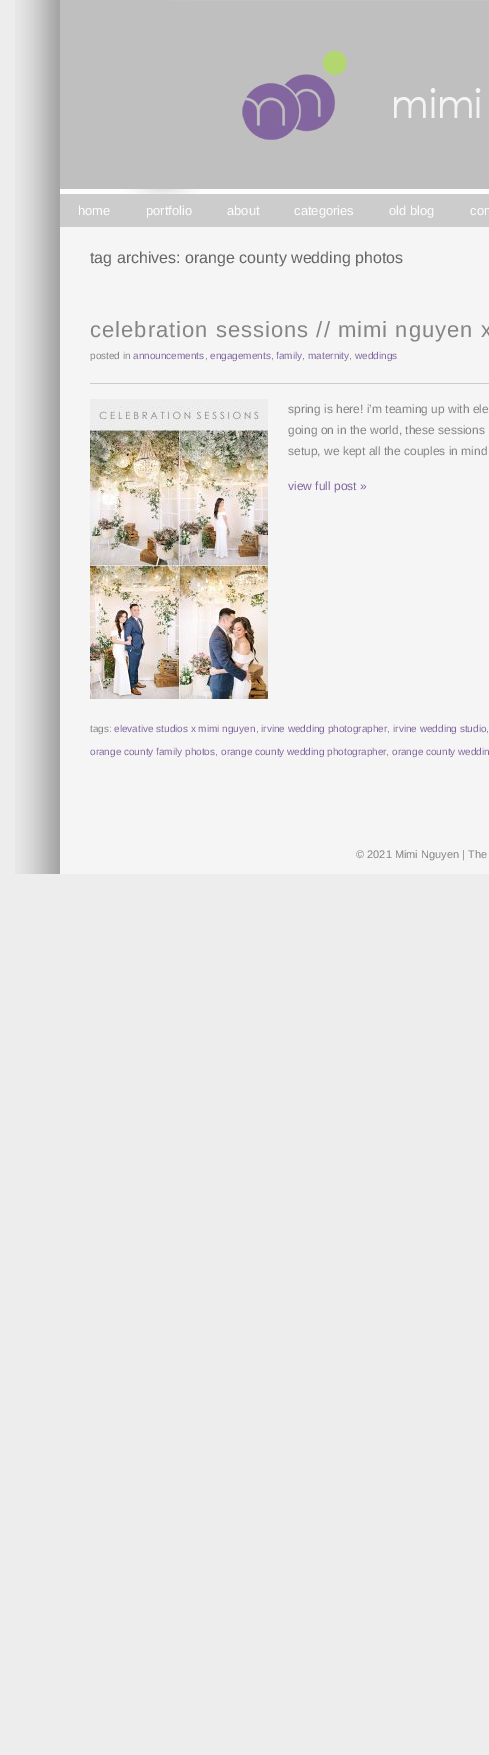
%!PS
<< /PageSize [489 1755] >> setpagedevice
/mt/moveto load def
/co { dup -16 bitshift 255 div exch dup -8 bitshift 255 and 255 div exch 255 and 255 div setrgbcolor } def
/fn { [ exch dup neg 0 0 3 -1 roll 0 0 ] selectfont } def
/tx { co fn moveto show } def
/bx { co rectfill } def
/im { 5 dict begin { /h /w /y /x /name } { exch def } forall
  gsave x y translate w h scale
  w h 8 [w 0 0 h 0 0] name (r) file false 3 colorimage grestore end } def
0 1755 translate 1 -1 scale
4 setmiterlimit
0 0 489 1755 16#EDEDED bx
(media/1.raw) 15 0 45 874 im
(media/2.raw) 60 0 429 194 im
60 194 429 33 16#CCCCCC bx
60 227 429 647 16#F5F5F5 bx
90 383 399 1 16#CCCCCC bx
(media/3.raw) 90 399 178 300 im
(home) 78 215 /LiberationSans-Regular 13 16#FFFFFF tx
(portfolio) 146 215 /LiberationSans-Regular 13 16#FFFFFF tx
(about) 227 215 /LiberationSans-Regular 13 16#FFFFFF tx
(categories) 294 215 /LiberationSans-Regular 13 16#FFFFFF tx
(old blog) 389 215 /LiberationSans-Regular 13 16#FFFFFF tx
(con) 470 215 /LiberationSans-Regular 13 16#FFFFFF tx
(tag archives: orange county wedding photos) 90 263 /LiberationSans-Regular 16 16#666666 tx
/LiberationSans-Regular 22 fn
16#858585 co
90 337 mt 1 0 (celebration sessions // mimi nguyen x) ashow
(posted in) 90 359 /LiberationSans-Regular 10 16#858585 tx
(announcements) 133 359 /LiberationSans-Regular 10 16#83669F tx
(,) 205 359 /LiberationSans-Regular 10 16#858585 tx
(engagements) 210 359 /LiberationSans-Regular 10 16#83669F tx
(,) 271 359 /LiberationSans-Regular 10 16#858585 tx
(family) 276 359 /LiberationSans-Regular 10 16#83669F tx
(,) 302 359 /LiberationSans-Regular 10 16#858585 tx
(maternity) 308 359 /LiberationSans-Regular 10 16#83669F tx
(,) 349 359 /LiberationSans-Regular 10 16#858585 tx
(weddings) 355 359 /LiberationSans-Regular 10 16#83669F tx
(spring is here! i’m teaming up with ele) 288 413 /LiberationSans-Regular 12 16#858585 tx
(going on in the world, these sessions) 288 434 /LiberationSans-Regular 12 16#858585 tx
(setup, we kept all the couples in mind) 288 455 /LiberationSans-Regular 12 16#858585 tx
(view full post ») 288 490 /LiberationSans-Regular 12 16#83669F tx
(tags:) 90 732 /LiberationSans-Regular 10 16#858585 tx
(elevative studios x mimi nguyen) 114 732 /LiberationSans-Regular 10 16#83669F tx
(,) 256 732 /LiberationSans-Regular 10 16#858585 tx
(irvine wedding photographer) 261 732 /LiberationSans-Regular 10 16#83669F tx
(,) 387 732 /LiberationSans-Regular 10 16#858585 tx
(irvine wedding studio) 393 732 /LiberationSans-Regular 10 16#83669F tx
(,) 486 732 /LiberationSans-Regular 10 16#858585 tx
(orange county family photos) 90 755 /LiberationSans-Regular 10 16#83669F tx
(,) 215 755 /LiberationSans-Regular 10 16#858585 tx
(orange county wedding photographer) 221 755 /LiberationSans-Regular 10 16#83669F tx
(,) 386 755 /LiberationSans-Regular 10 16#858585 tx
(orange county weddin) 392 755 /LiberationSans-Regular 10 16#83669F tx
(© 2021 Mimi Nguyen | The) 356 858 /LiberationSans-Regular 11 16#858585 tx
showpage
